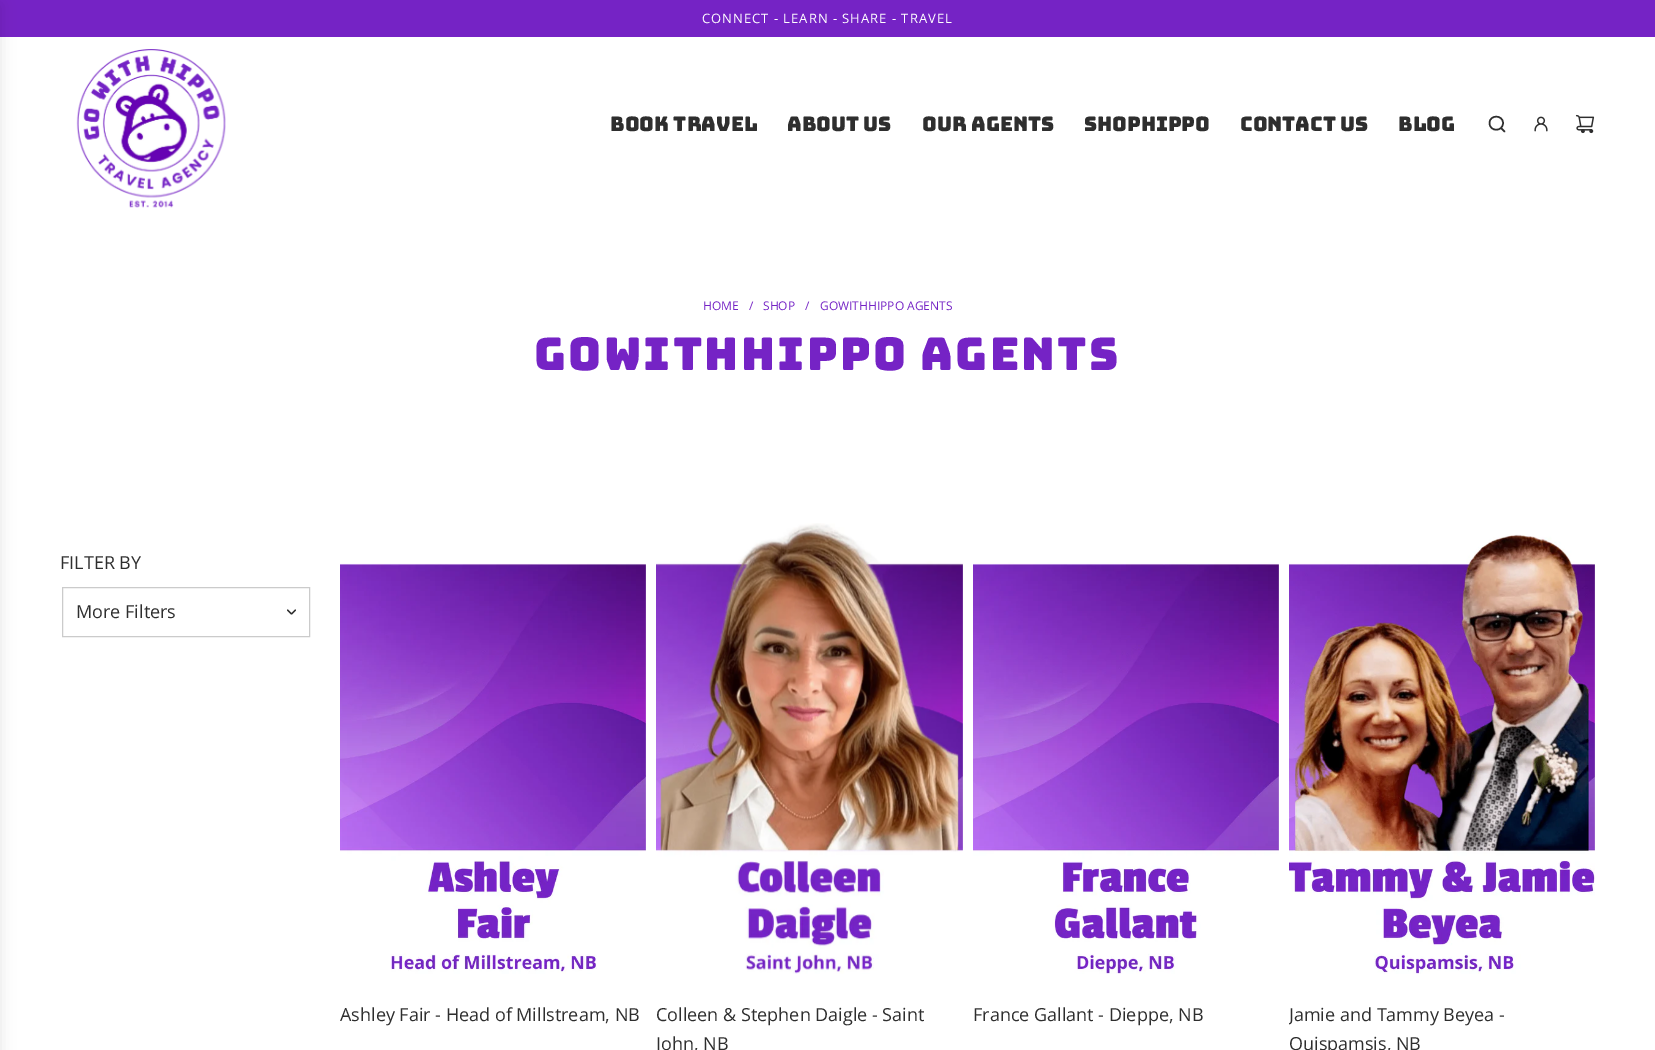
%!PS
<< /PageSize [1655 1050] /PageUsesTransparency true >> setpagedevice
/mt/moveto load def
/li/lineto load def
/ct/curveto load def
/cp/closepath load def
/st/stroke load def
/gs/gsave load def
/gr/grestore load def
/lw/setlinewidth load def
/co { dup -16 bitshift 255 div exch dup -8 bitshift 255 and 255 div exch 255 and 255 div setrgbcolor } def
/fn { [ exch dup neg 0 0 3 -1 roll 0 0 ] selectfont } def
/tx { co fn moveto show } def
/bx { co rectfill } def
/al { dup .setfillconstantalpha .setstrokeconstantalpha } def
/rr { 5 dict begin { /r /h /w /y /x } { exch def } forall
  x r add y moveto x w add y 2 copy h add r arct x w add y h add x 1 index r arct
  x y h add x y r arct x y 2 copy exch w add exch r arct closepath end } def
/sh { 12 dict begin { /a /b /q /h /w /y /x } { exch def } forall gsave /was 0 def
  9 -2 -9 { dup b mul 4 div /e exch def 1 sub .425 mul 2.718 exch exp 1 add a .99 .min exch div /now exch def
    1 1 now sub 1 was sub div sub al /was now def
    w h .min e 2 mul add 0 gt { x e sub y e sub w e 2 mul add h e 2 mul add
      q e add b .6 mul add w h .min 2 div e add .min 0 .max rr fill } if } for grestore end } def
/im { 5 dict begin { /h /w /y /x /name } { exch def } forall
  gsave x y translate w h scale
  w h 8 [w 0 0 h 0 0] name (r) file false 3 colorimage grestore end } def
0 .pushpdf14devicefilter
0 1050 translate 1 -1 scale
4 setmiterlimit
0 0 1655 1050 16#FFFFFF bx
0 0 1655 37 16#7523C5 bx
16#000000 co
-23 5 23 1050 0 7.5 .1 sh
(media/1.raw) 76 49 150 159 im
16#2E2E2E co
1.5 lw
1 setlinecap
1 setlinejoin
1501 128 mt 1504.5 131.5 li 1489.5 123 mt 1489.5 132 1503 132 1503 123 ct 1503 114.5 1489.5 114.5 1489.5 123 ct cp st
(media/2.raw) 1534 116 14 16 im
(media/3.raw) 1575 114 20 20 im
16#CBCBCB co
1 lw
0 setlinecap
0 setlinejoin
62.5 587.5 247 49 rectstroke
16#2E2E2E co
1.2 lw
1 setlinecap
1 setlinejoin
287.5 610 mt 291.5 614 li 295.5 610 li st
(media/4.raw) 340 563 306 411 im
(media/5.raw) 656 523 307 451 im
(media/6.raw) 973 562 306 412 im
(media/7.raw) 1289 534 306 440 im
/OpenSans-Regular 13 fn
16#FFFFFF co
702 23 mt 1 0 (CONNECT - LEARN - SHARE - TRAVEL) ashow
(BOOK TRAVEL) 610 131 /Bungee-Regular 20 16#2E2E2E tx
(ABOUT US) 787 131 /Bungee-Regular 20 16#2E2E2E tx
(OUR AGENTS) 922 131 /Bungee-Regular 20 16#2E2E2E tx
(SHOPHIPPO) 1084 131 /Bungee-Regular 20 16#2E2E2E tx
(CONTACT US) 1240 131 /Bungee-Regular 20 16#2E2E2E tx
(BLOG) 1398 131 /Bungee-Regular 20 16#2E2E2E tx
(HOME) 703 310 /OpenSans-Regular 12 16#7523C5 tx
(/) 749 310 /OpenSans-Regular 12 16#7523C5 tx
(SHOP) 763 310 /OpenSans-Regular 12 16#7523C5 tx
(/) 805 310 /OpenSans-Regular 12 16#7523C5 tx
(GOWITHHIPPO AGENTS) 820 310 /OpenSans-Regular 12 16#7523C5 tx
/Bungee-Regular 45 fn
534 370 mt 2.25 0 (GOWITHHIPPO AGENTS) ashow
(FILTER BY) 60 569 /OpenSans-Regular 18 16#2E2E2E tx
(More Filters) 76 618 /OpenSans-Regular 18 16#2E2E2E tx
(Ashley Fair - Head of Millstream, NB) 340 1021 /OpenSans-Regular 18 16#2E2E2E tx
(Colleen & Stephen Daigle - Saint) 656 1021 /OpenSans-Regular 18 16#2E2E2E tx
(John, NB) 656 1050 /OpenSans-Regular 18 16#2E2E2E tx
(France Gallant - Dieppe, NB) 973 1021 /OpenSans-Regular 18 16#2E2E2E tx
gs
1289 1000 306 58 rectclip
(Jamie and Tammy Beyea -) 1289 1021 /OpenSans-Regular 18 16#2E2E2E tx
gr
(Quispamsis, NB) 1289 1050 /OpenSans-Regular 18 16#2E2E2E tx
.poppdf14devicefilter showpage
